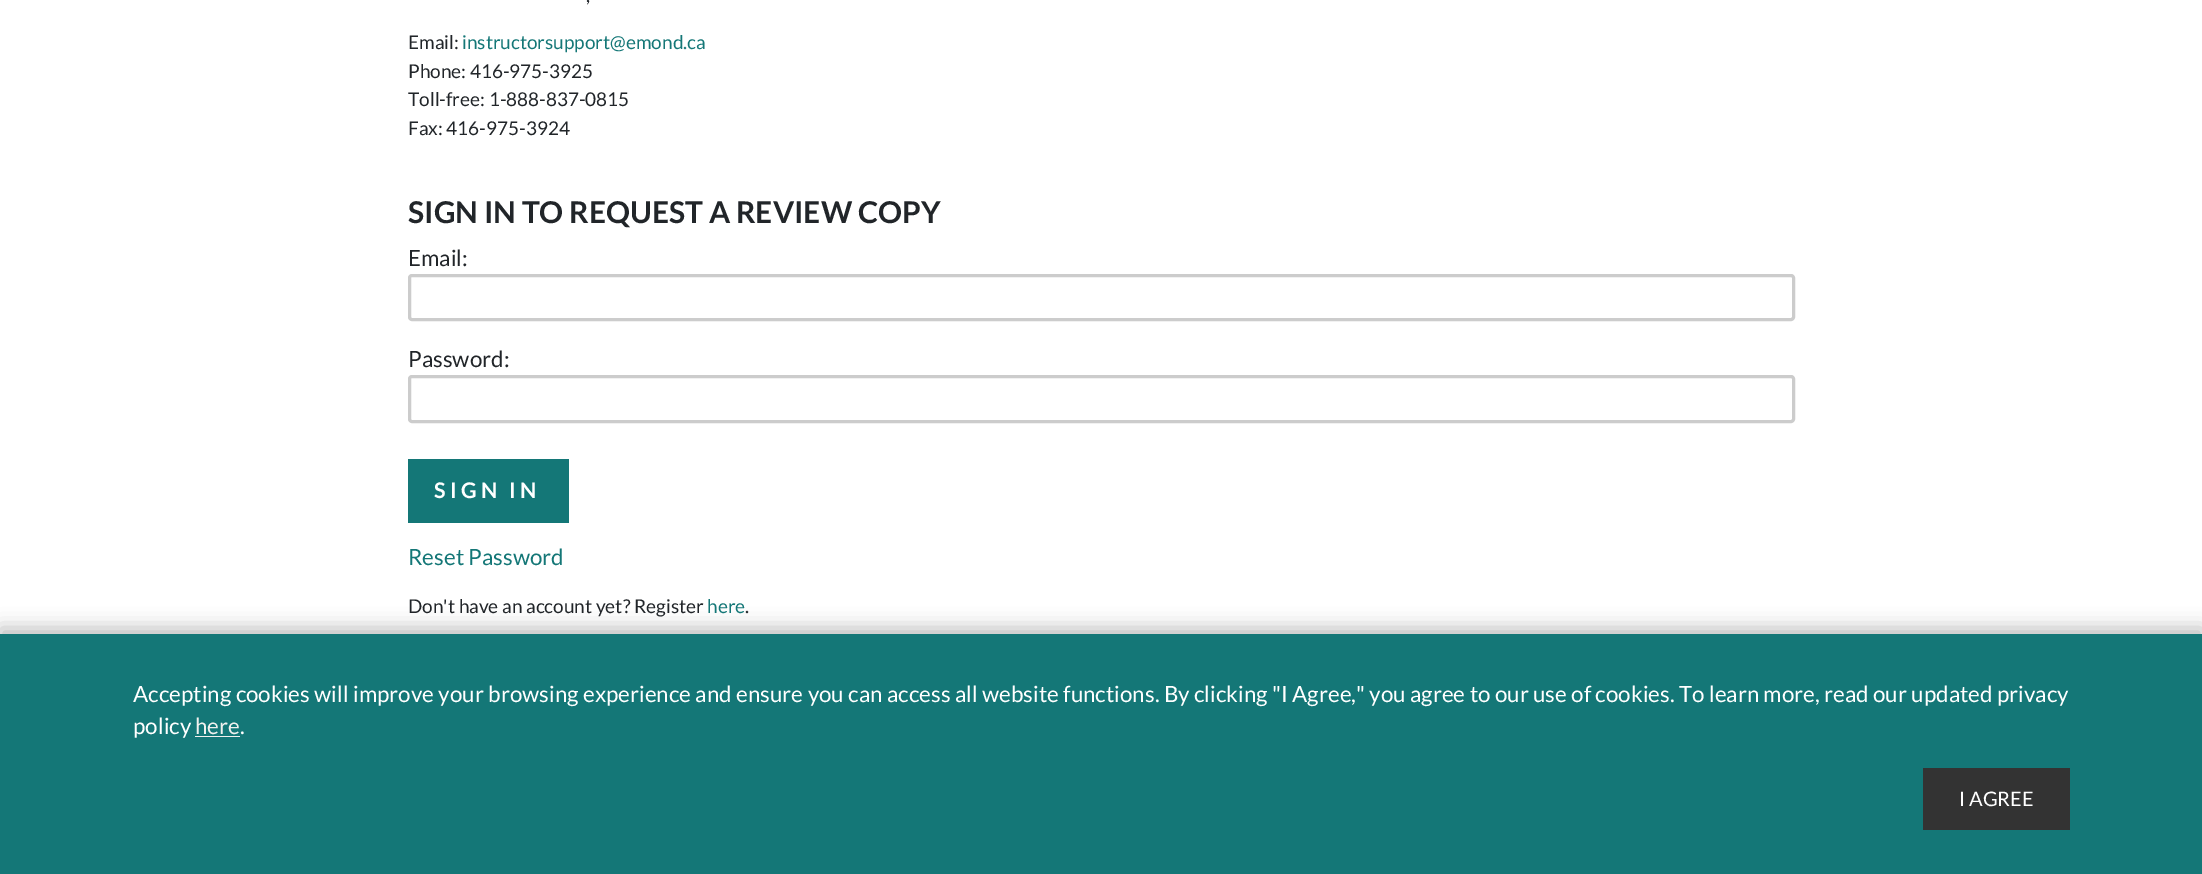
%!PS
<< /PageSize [2202 874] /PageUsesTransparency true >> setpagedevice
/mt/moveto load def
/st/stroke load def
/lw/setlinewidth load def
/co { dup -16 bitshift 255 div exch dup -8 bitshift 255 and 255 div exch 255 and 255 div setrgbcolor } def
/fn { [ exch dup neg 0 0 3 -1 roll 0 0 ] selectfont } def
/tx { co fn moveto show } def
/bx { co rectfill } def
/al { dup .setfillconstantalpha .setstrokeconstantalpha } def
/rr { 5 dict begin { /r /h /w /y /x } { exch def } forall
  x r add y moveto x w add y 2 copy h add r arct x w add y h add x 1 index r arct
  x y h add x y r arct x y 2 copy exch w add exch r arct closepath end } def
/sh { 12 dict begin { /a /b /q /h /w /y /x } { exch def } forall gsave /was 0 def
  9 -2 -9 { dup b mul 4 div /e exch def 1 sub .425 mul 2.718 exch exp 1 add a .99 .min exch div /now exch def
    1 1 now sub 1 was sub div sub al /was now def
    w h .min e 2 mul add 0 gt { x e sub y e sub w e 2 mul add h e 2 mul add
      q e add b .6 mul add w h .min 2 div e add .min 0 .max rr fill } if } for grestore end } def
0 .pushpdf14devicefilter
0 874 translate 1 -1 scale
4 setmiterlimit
0 0 2202 874 16#FFFFFF bx
16#CCCCCC co
3 lw
409.5 275.5 1384 44 2.5 rr st
409.5 376.5 1384 45 2.5 rr st
408 459 161 64 16#147777 bx
16#000000 co
0 628 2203 241 0 9.5 .25 sh
0 634 2202 240 16#147777 bx
195 736 45 1 16#F1F1EE bx
1923 768 147 62 16#333333 bx
(,) 586 2 /Lato-Regular 19 16#212529 tx
(Email:) 408 49 /Lato-Regular 19 16#212529 tx
(instructorsupport@emond.ca) 462 49 /Lato-Regular 19 16#147777 tx
(Phone: 416-975-3925) 408 78 /Lato-Regular 19 16#212529 tx
(Toll-free: 1-888-837-0815) 408 106 /Lato-Regular 19 16#212529 tx
(Fax: 416-975-3924) 408 135 /Lato-Regular 19 16#212529 tx
(SIGN IN TO REQUEST A REVIEW COPY) 408 223 /Lato-Bold 30 16#212529 tx
(Email:) 408 266 /Lato-Regular 22.4 16#212529 tx
(Password:) 408 367 /Lato-Regular 22.4 16#212529 tx
/Lato-Bold 21.5 fn
16#FFFFFF co
434 498 mt 4.25 0 (SIGN IN) ashow
(Reset Password) 408 565 /Lato-Regular 22.4 16#147777 tx
(Don't have an account yet? Register) 408 613 /Lato-Regular 19 16#212529 tx
(here) 707 613 /Lato-Regular 19 16#147777 tx
(.) 745 613 /Lato-Regular 19 16#212529 tx
(Accepting cookies will improve your browsing experience and ensure you can access all website functions. By clicking "I Agree," you agree to our use of cookies. To learn more, read our updated privacy) 133 702 /Lato-Regular 22.4 16#FFFFFF tx
(policy) 133 734 /Lato-Regular 22.4 16#FFFFFF tx
(here) 195 734 /Lato-Regular 22.4 16#F1F1EE tx
(.) 240 734 /Lato-Regular 22.4 16#FFFFFF tx
(I AGREE) 1959 806 /Lato-Regular 20 16#FFFFFF tx
.poppdf14devicefilter showpage
